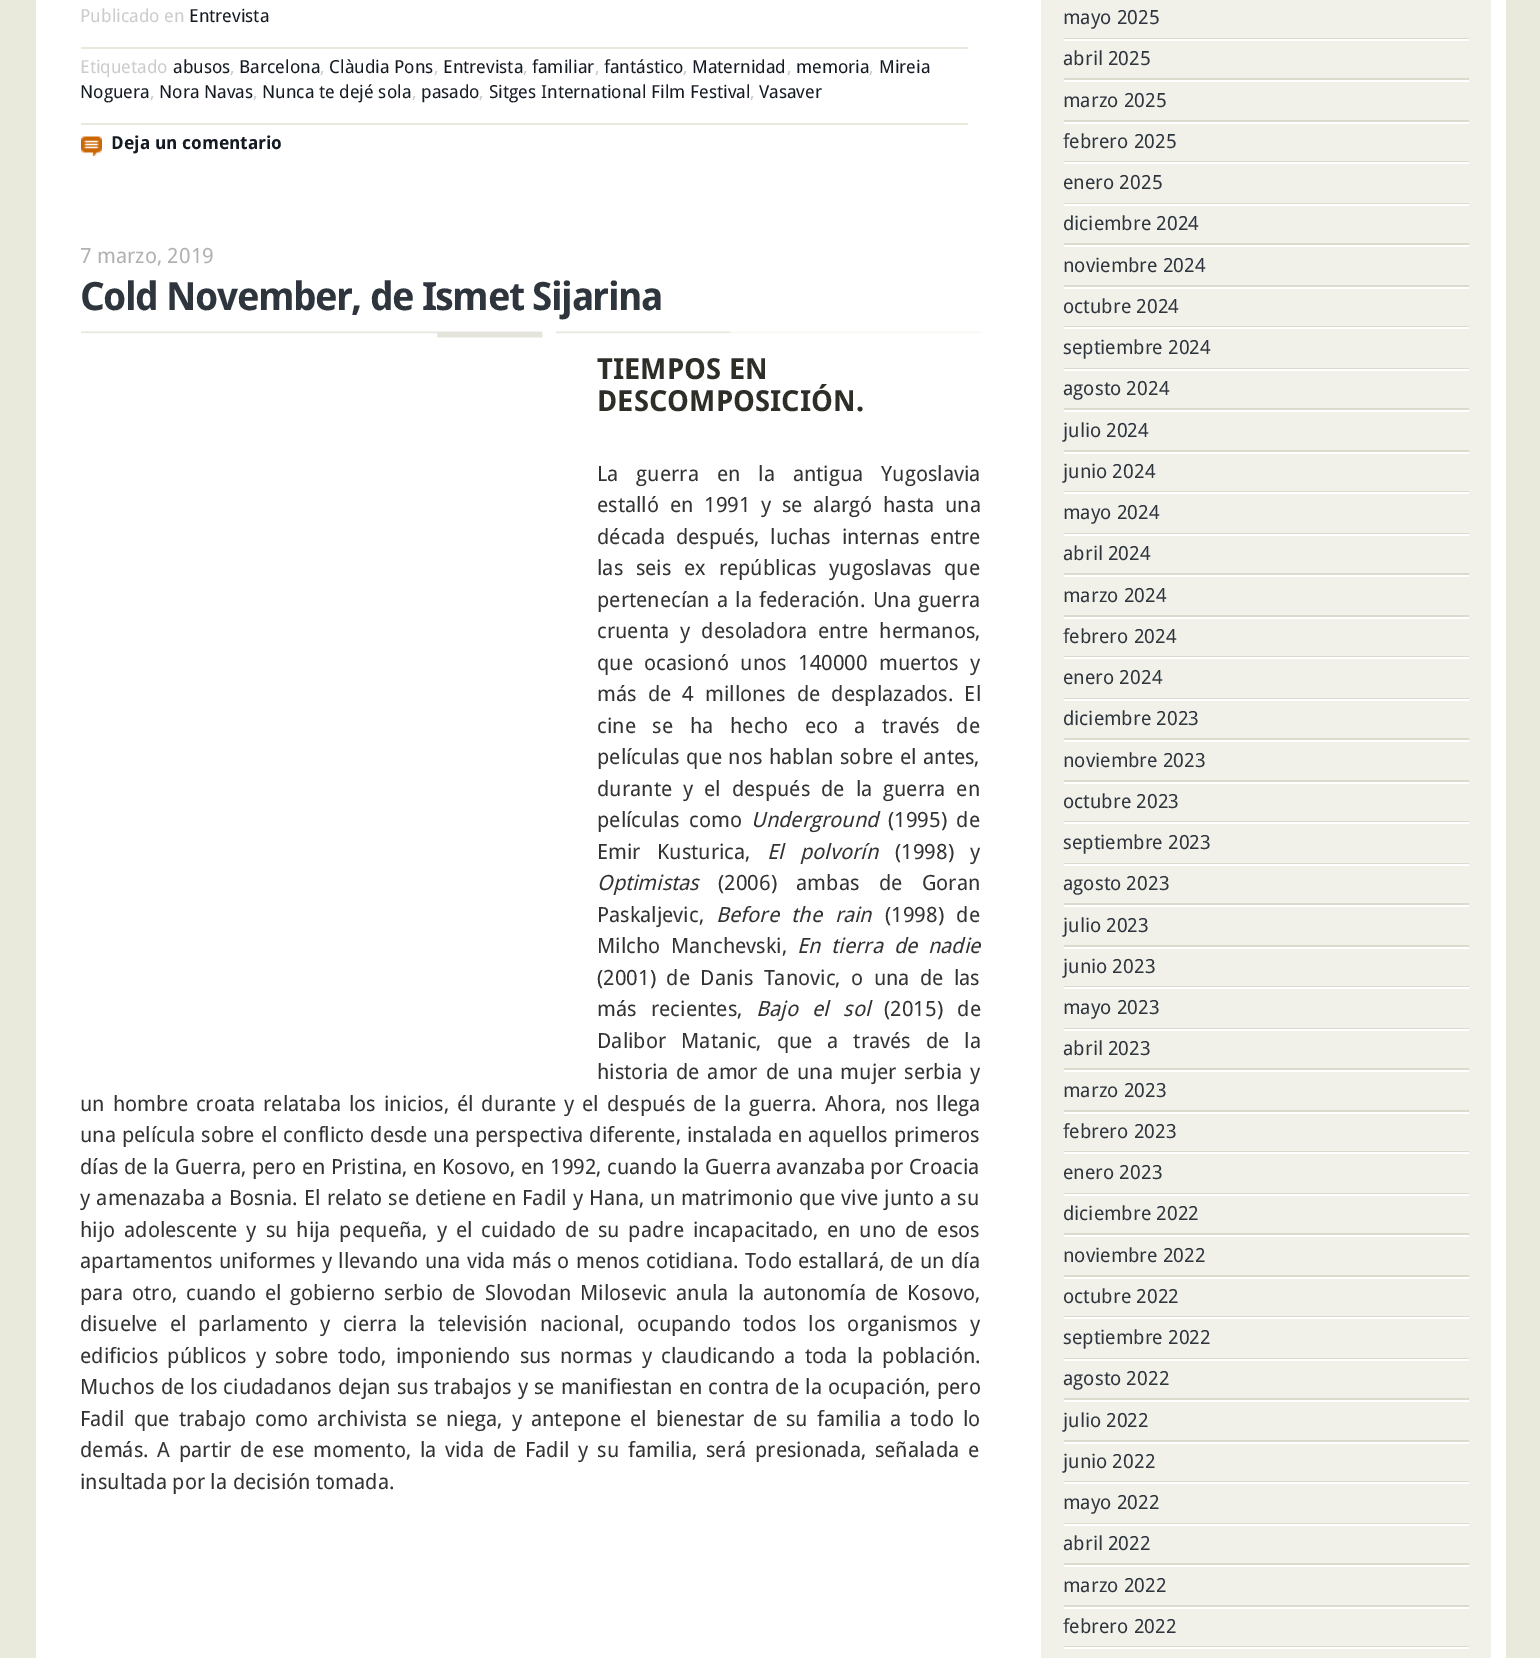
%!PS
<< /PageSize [1540 1658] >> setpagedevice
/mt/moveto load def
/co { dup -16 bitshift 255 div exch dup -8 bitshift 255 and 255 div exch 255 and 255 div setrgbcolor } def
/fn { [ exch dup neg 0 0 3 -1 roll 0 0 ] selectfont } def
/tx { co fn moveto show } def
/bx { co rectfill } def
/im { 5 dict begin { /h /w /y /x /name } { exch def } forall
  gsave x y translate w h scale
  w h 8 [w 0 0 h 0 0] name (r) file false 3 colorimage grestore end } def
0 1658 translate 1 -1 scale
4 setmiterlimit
0 0 1540 1658 16#E9E9DC bx
36 0 1470 1658 16#FFFFFF bx
81 47 887 2 16#E9E9DD bx
81 123 887 2 16#E9E9DD bx
(media/1.raw) 81 136 21 20 im
(media/2.raw) 81 331 900 7 im
1041 0 450 1658 16#F1F1EA bx
1064 38 405 1 16#DADACD bx
1064 39 405 2 16#FFFFFF bx
1064 78 405 2 16#DADACD bx
1064 80 405 2 16#FFFFFF bx
1064 120 405 2 16#DADACD bx
1064 122 405 2 16#FFFFFF bx
1064 161 405 1 16#DADACD bx
1064 162 405 2 16#FFFFFF bx
1064 203 405 1 16#DADACD bx
1064 204 405 2 16#FFFFFF bx
1064 243 405 2 16#DADACD bx
1064 245 405 2 16#FFFFFF bx
1064 285 405 2 16#DADACD bx
1064 287 405 2 16#FFFFFF bx
1064 326 405 1 16#DADACD bx
1064 327 405 2 16#FFFFFF bx
1064 368 405 1 16#DADACD bx
1064 369 405 2 16#FFFFFF bx
1064 408 405 2 16#DADACD bx
1064 410 405 2 16#FFFFFF bx
1064 450 405 2 16#DADACD bx
1064 452 405 2 16#FFFFFF bx
1064 491 405 1 16#DADACD bx
1064 492 405 2 16#FFFFFF bx
1064 533 405 1 16#DADACD bx
1064 534 405 2 16#FFFFFF bx
1064 573 405 2 16#DADACD bx
1064 575 405 2 16#FFFFFF bx
1064 615 405 2 16#DADACD bx
1064 617 405 2 16#FFFFFF bx
1064 656 405 1 16#DADACD bx
1064 657 405 2 16#FFFFFF bx
1064 698 405 1 16#DADACD bx
1064 699 405 2 16#FFFFFF bx
1064 738 405 2 16#DADACD bx
1064 740 405 2 16#FFFFFF bx
1064 780 405 2 16#DADACD bx
1064 782 405 2 16#FFFFFF bx
1064 821 405 1 16#DADACD bx
1064 822 405 2 16#FFFFFF bx
1064 863 405 1 16#DADACD bx
1064 864 405 2 16#FFFFFF bx
1064 903 405 2 16#DADACD bx
1064 905 405 2 16#FFFFFF bx
1064 945 405 2 16#DADACD bx
1064 947 405 2 16#FFFFFF bx
1064 986 405 1 16#DADACD bx
1064 987 405 2 16#FFFFFF bx
1064 1028 405 1 16#DADACD bx
1064 1029 405 2 16#FFFFFF bx
1064 1068 405 2 16#DADACD bx
1064 1070 405 2 16#FFFFFF bx
1064 1110 405 2 16#DADACD bx
1064 1112 405 2 16#FFFFFF bx
1064 1151 405 1 16#DADACD bx
1064 1152 405 2 16#FFFFFF bx
1064 1193 405 1 16#DADACD bx
1064 1194 405 2 16#FFFFFF bx
1064 1233 405 2 16#DADACD bx
1064 1235 405 2 16#FFFFFF bx
1064 1275 405 2 16#DADACD bx
1064 1277 405 2 16#FFFFFF bx
1064 1316 405 1 16#DADACD bx
1064 1317 405 2 16#FFFFFF bx
1064 1358 405 1 16#DADACD bx
1064 1359 405 2 16#FFFFFF bx
1064 1398 405 2 16#DADACD bx
1064 1400 405 2 16#FFFFFF bx
1064 1440 405 2 16#DADACD bx
1064 1442 405 2 16#FFFFFF bx
1064 1481 405 1 16#DADACD bx
1064 1482 405 2 16#FFFFFF bx
1064 1523 405 1 16#DADACD bx
1064 1524 405 2 16#FFFFFF bx
1064 1563 405 2 16#DADACD bx
1064 1565 405 2 16#FFFFFF bx
1064 1605 405 2 16#DADACD bx
1064 1607 405 2 16#FFFFFF bx
1064 1646 405 1 16#DADACD bx
1064 1647 405 2 16#FFFFFF bx
(Publicado en) 80 22 /DroidSans-Regular 18 16#CCCCCC tx
(Entrevista) 189 22 /DroidSans-Regular 18 16#141B23 tx
(Etiquetado) 80 73 /DroidSans-Regular 18 16#CCCCCC tx
(abusos) 173 73 /DroidSans-Regular 18 16#141B23 tx
(,) 230 73 /DroidSans-Regular 18 16#CCCCCC tx
(Barcelona) 239 73 /DroidSans-Regular 18 16#141B23 tx
(,) 320 73 /DroidSans-Regular 18 16#CCCCCC tx
(Clàudia Pons) 329 73 /DroidSans-Regular 18 16#141B23 tx
(,) 434 73 /DroidSans-Regular 18 16#CCCCCC tx
(Entrevista) 443 73 /DroidSans-Regular 18 16#141B23 tx
(,) 523 73 /DroidSans-Regular 18 16#CCCCCC tx
(familiar) 532 73 /DroidSans-Regular 18 16#141B23 tx
(,) 595 73 /DroidSans-Regular 18 16#CCCCCC tx
(fantástico) 604 73 /DroidSans-Regular 18 16#141B23 tx
(,) 683 73 /DroidSans-Regular 18 16#CCCCCC tx
(Maternidad) 692 73 /DroidSans-Regular 18 16#141B23 tx
(,) 787 73 /DroidSans-Regular 18 16#CCCCCC tx
(memoria) 796 73 /DroidSans-Regular 18 16#141B23 tx
(,) 869 73 /DroidSans-Regular 18 16#CCCCCC tx
(Mireia) 879 73 /DroidSans-Regular 18 16#141B23 tx
(Noguera) 80 98 /DroidSans-Regular 18 16#141B23 tx
(,) 150 98 /DroidSans-Regular 18 16#CCCCCC tx
(Nora Navas) 159 98 /DroidSans-Regular 18 16#141B23 tx
(,) 253 98 /DroidSans-Regular 18 16#CCCCCC tx
(Nunca te dejé sola) 262 98 /DroidSans-Regular 18 16#141B23 tx
(,) 412 98 /DroidSans-Regular 18 16#CCCCCC tx
(pasado) 421 98 /DroidSans-Regular 18 16#141B23 tx
(,) 479 98 /DroidSans-Regular 18 16#CCCCCC tx
(Sitges International Film Festival) 489 98 /DroidSans-Regular 18 16#141B23 tx
(,) 750 98 /DroidSans-Regular 18 16#CCCCCC tx
(Vasaver) 759 98 /DroidSans-Regular 18 16#141B23 tx
(Deja un comentario) 111 149 /DroidSans-Bold 18 16#141B23 tx
(7 marzo, 2019) 80 263 /DroidSans-Regular 21 16#B1B1B1 tx
/DroidSans-Bold 39 fn
16#2E353D co
80 310 mt -1.55 0 (Cold November, de Ismet Sijarina) ashow
(TIEMPOS EN) 597 379 /DroidSans-Bold 29 16#2E2E29 tx
(DESCOMPOSICIÓN.) 597 411 /DroidSans-Bold 29 16#2E2E29 tx
/DroidSans-Regular 21 fn
16#333333 co
597 481 mt 12.5 0 32 (La guerra en la antigua Yugoslavia) widthshow
597 512 mt 5.25 0 32 (estalló en 1991 y se alargó hasta una) widthshow
597 544 mt 5.5 0 32 (década después, luchas internas entre) widthshow
597 575 mt 7.25 0 32 (las seis ex repúblicas yugoslavas que) widthshow
597 607 mt 1.75 0 32 (pertenecían a la federación. Una guerra) widthshow
597 638 mt 5.5 0 32 (cruenta y desoladora entre hermanos,) widthshow
597 670 mt 6 0 32 (que ocasionó unos 140000 muertos y) widthshow
597 701 mt 5.75 0 32 (más de 4 millones de desplazados. El) widthshow
597 733 mt 11.25 0 32 (cine se ha hecho eco a través de) widthshow
597 764 mt 1 0 32 (películas que nos hablan sobre el antes,) widthshow
597 796 mt 5.5 0 32 (durante y el después de la guerra en) widthshow
597 827 mt 4 0 32 (películas como) widthshow
(Underground) 751 827 /DroidSans-Italic 21 16#333333 tx
/DroidSans-Regular 21 fn
888 827 mt 4 0 32 (\(1995\) de) widthshow
597 859 mt 11 0 32 (Emir Kusturica,) widthshow
/DroidSans-Italic 21 fn
767 859 mt 11 0 32 (El polvorín) widthshow
/DroidSans-Regular 21 fn
895 859 mt 11 0 32 (\(1998\) y) widthshow
(Optimistas) 597 890 /DroidSans-Italic 21 16#333333 tx
/DroidSans-Regular 21 fn
718 890 mt 14 0 32 (\(2006\) ambas de Goran) widthshow
(Paskaljevic,) 597 922 /DroidSans-Regular 21 16#333333 tx
/DroidSans-Italic 21 fn
716 922 mt 7 0 32 (Before the rain) widthshow
/DroidSans-Regular 21 fn
885 922 mt 7 0 32 (\(1998\) de) widthshow
597 953 mt 5.25 0 32 (Milcho Manchevski,) widthshow
/DroidSans-Italic 21 fn
797 953 mt 5.25 0 32 (En tierra de nadie) widthshow
/DroidSans-Regular 21 fn
597 985 mt 5 0 32 (\(2001\) de Danis Tanovic, o una de las) widthshow
597 1016 mt 9 0 32 (más recientes,) widthshow
/DroidSans-Italic 21 fn
756 1016 mt 9 0 32 (Bajo el sol) widthshow
/DroidSans-Regular 21 fn
884 1016 mt 9 0 32 (\(2015\) de) widthshow
597 1048 mt 9.5 0 32 (Dalibor Matanic, que a través de la) widthshow
597 1079 mt 2.25 0 32 (historia de amor de una mujer serbia y) widthshow
80 1111 mt 2.4 0 32 (un hombre croata relataba los inicios, él durante y el después de la guerra. Ahora, nos llega) widthshow
80 1142 mt .6 0 32 (una película sobre el conflicto desde una perspectiva diferente, instalada en aquellos primeros) widthshow
80 1174 mt .1 0 32 (días de la Guerra, pero en Pristina, en Kosovo, en 1992, cuando la Guerra avanzaba por Croacia) widthshow
80 1205 mt .75 0 32 (y amenazaba a Bosnia. El relato se detiene en Fadil y Hana, un matrimonio que vive junto a su) widthshow
80 1237 mt 3.4 0 32 (hijo adolescente y su hija pequeña, y el cuidado de su padre incapacitado, en uno de esos) widthshow
80 1268 mt .75 0 32 (apartamentos uniformes y llevando una vida más o menos cotidiana. Todo estallará, de un día) widthshow
80 1300 mt 3.5 0 32 (para otro, cuando el gobierno serbio de Slovodan Milosevic anula la autonomía de Kosovo,) widthshow
80 1331 mt 6.6 0 32 (disuelve el parlamento y cierra la televisión nacional, ocupando todos los organismos y) widthshow
80 1363 mt 3.75 0 32 (edificios públicos y sobre todo, imponiendo sus normas y claudicando a toda la población.) widthshow
80 1394 mt .75 0 32 (Muchos de los ciudadanos dejan sus trabajos y se manifiestan en contra de la ocupación, pero) widthshow
80 1426 mt 3.6 0 32 (Fadil que trabajo como archivista se niega, y antepone el bienestar de su familia a todo lo) widthshow
80 1457 mt 3.25 0 32 (demás. A partir de ese momento, la vida de Fadil y su familia, será presionada, señalada e) widthshow
(insultada por la decisión tomada.) 80 1489 /DroidSans-Regular 21 16#333333 tx
(mayo 2025) 1063 24 /DroidSans-Regular 19.5 16#2E353D tx
(abril 2025) 1063 65 /DroidSans-Regular 19.5 16#2E353D tx
(marzo 2025) 1063 107 /DroidSans-Regular 19.5 16#2E353D tx
(febrero 2025) 1063 148 /DroidSans-Regular 19.5 16#2E353D tx
(enero 2025) 1063 189 /DroidSans-Regular 19.5 16#2E353D tx
(diciembre 2024) 1063 230 /DroidSans-Regular 19.5 16#2E353D tx
(noviembre 2024) 1063 272 /DroidSans-Regular 19.5 16#2E353D tx
(octubre 2024) 1063 313 /DroidSans-Regular 19.5 16#2E353D tx
(septiembre 2024) 1063 354 /DroidSans-Regular 19.5 16#2E353D tx
(agosto 2024) 1063 395 /DroidSans-Regular 19.5 16#2E353D tx
(julio 2024) 1063 437 /DroidSans-Regular 19.5 16#2E353D tx
(junio 2024) 1063 478 /DroidSans-Regular 19.5 16#2E353D tx
(mayo 2024) 1063 519 /DroidSans-Regular 19.5 16#2E353D tx
(abril 2024) 1063 560 /DroidSans-Regular 19.5 16#2E353D tx
(marzo 2024) 1063 602 /DroidSans-Regular 19.5 16#2E353D tx
(febrero 2024) 1063 643 /DroidSans-Regular 19.5 16#2E353D tx
(enero 2024) 1063 684 /DroidSans-Regular 19.5 16#2E353D tx
(diciembre 2023) 1063 725 /DroidSans-Regular 19.5 16#2E353D tx
(noviembre 2023) 1063 767 /DroidSans-Regular 19.5 16#2E353D tx
(octubre 2023) 1063 808 /DroidSans-Regular 19.5 16#2E353D tx
(septiembre 2023) 1063 849 /DroidSans-Regular 19.5 16#2E353D tx
(agosto 2023) 1063 890 /DroidSans-Regular 19.5 16#2E353D tx
(julio 2023) 1063 932 /DroidSans-Regular 19.5 16#2E353D tx
(junio 2023) 1063 973 /DroidSans-Regular 19.5 16#2E353D tx
(mayo 2023) 1063 1014 /DroidSans-Regular 19.5 16#2E353D tx
(abril 2023) 1063 1055 /DroidSans-Regular 19.5 16#2E353D tx
(marzo 2023) 1063 1097 /DroidSans-Regular 19.5 16#2E353D tx
(febrero 2023) 1063 1138 /DroidSans-Regular 19.5 16#2E353D tx
(enero 2023) 1063 1179 /DroidSans-Regular 19.5 16#2E353D tx
(diciembre 2022) 1063 1220 /DroidSans-Regular 19.5 16#2E353D tx
(noviembre 2022) 1063 1262 /DroidSans-Regular 19.5 16#2E353D tx
(octubre 2022) 1063 1303 /DroidSans-Regular 19.5 16#2E353D tx
(septiembre 2022) 1063 1344 /DroidSans-Regular 19.5 16#2E353D tx
(agosto 2022) 1063 1385 /DroidSans-Regular 19.5 16#2E353D tx
(julio 2022) 1063 1427 /DroidSans-Regular 19.5 16#2E353D tx
(junio 2022) 1063 1468 /DroidSans-Regular 19.5 16#2E353D tx
(mayo 2022) 1063 1509 /DroidSans-Regular 19.5 16#2E353D tx
(abril 2022) 1063 1550 /DroidSans-Regular 19.5 16#2E353D tx
(marzo 2022) 1063 1592 /DroidSans-Regular 19.5 16#2E353D tx
(febrero 2022) 1063 1633 /DroidSans-Regular 19.5 16#2E353D tx
showpage
